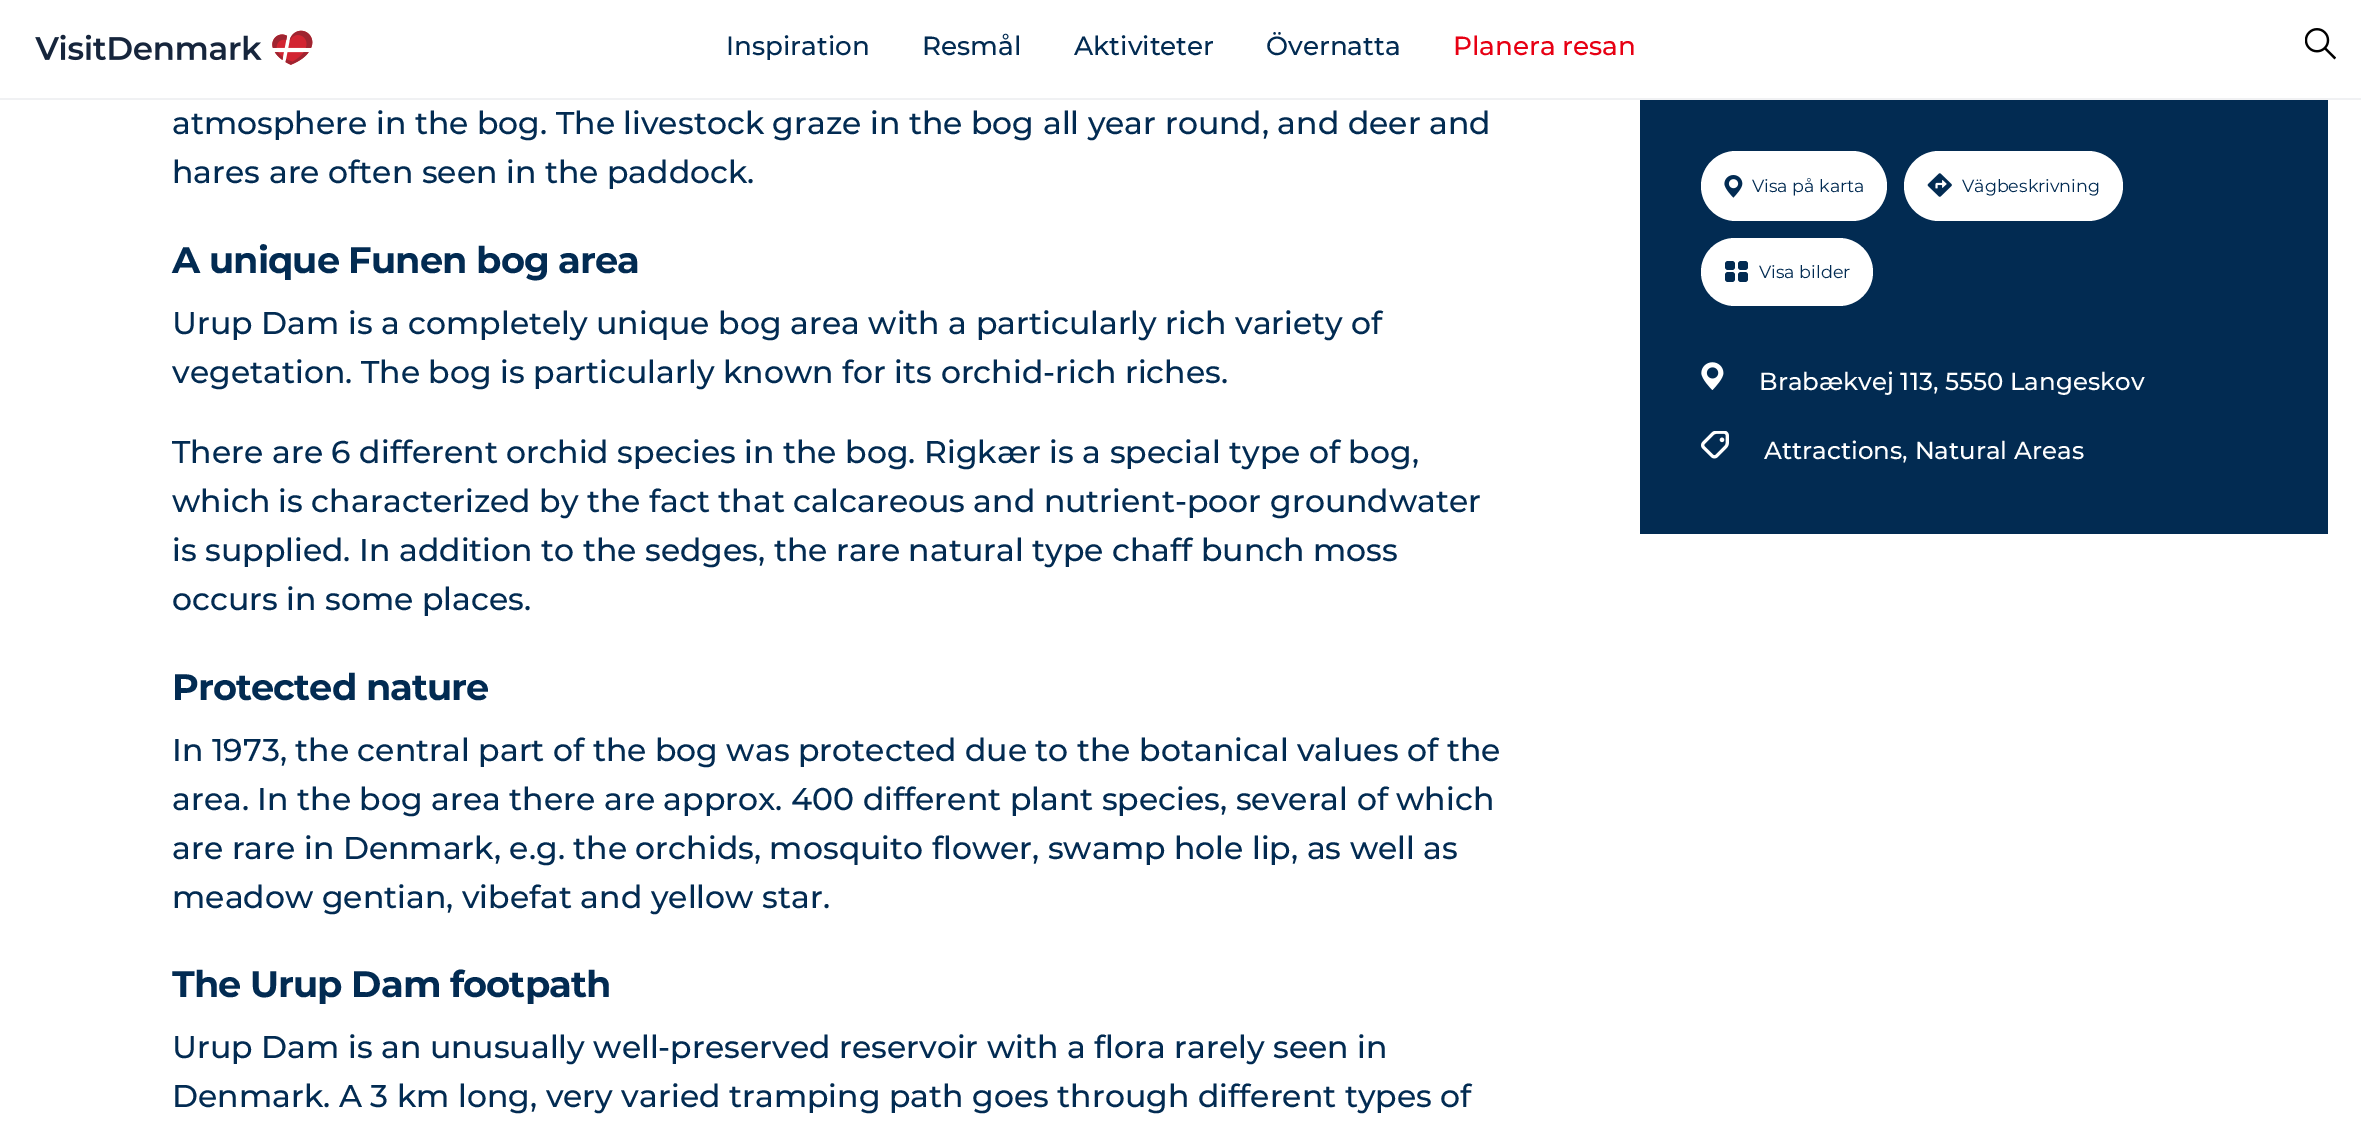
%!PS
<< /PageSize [2361 1126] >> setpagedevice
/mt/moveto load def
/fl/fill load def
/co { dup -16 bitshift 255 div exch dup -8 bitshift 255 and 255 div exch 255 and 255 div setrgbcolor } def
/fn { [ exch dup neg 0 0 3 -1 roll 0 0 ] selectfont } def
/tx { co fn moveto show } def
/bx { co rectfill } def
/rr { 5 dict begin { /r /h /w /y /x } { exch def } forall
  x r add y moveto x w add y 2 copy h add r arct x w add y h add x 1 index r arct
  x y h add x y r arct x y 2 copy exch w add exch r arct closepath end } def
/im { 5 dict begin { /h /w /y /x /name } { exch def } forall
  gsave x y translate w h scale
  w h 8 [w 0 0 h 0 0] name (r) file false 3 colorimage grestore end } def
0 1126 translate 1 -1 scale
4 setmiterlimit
0 0 2361 1126 16#FFFFFF bx
0 98 2361 2 16#F0F1F3 bx
(media/1.raw) 35 30 278 35 im
(media/2.raw) 2305 28 31 32 im
1640 100 688 434 16#022B52 bx
16#FFFFFF co
1701 151 186 70 35 rr fl
(media/3.raw) 1724 175 19 23 im
1904 151 219 70 35 rr fl
(media/4.raw) 1927 173 25 24 im
1701 238 172 68 34 rr fl
16#022B52 co
1738 261 10 9 3 rr fl
1738 272 10 10 3 rr fl
1725 261 10 9 3 rr fl
1725 272 10 10 3 rr fl
(media/5.raw) 1701 362 23 28 im
(media/6.raw) 1701 431 28 28 im
(Inspiration) 726 55 /Montserrat-Medium 26.25 16#022B52 tx
(Resmål) 922 55 /Montserrat-Medium 26.25 16#022B52 tx
(Aktiviteter) 1074 55 /Montserrat-Medium 26.25 16#022B52 tx
(Övernatta) 1266 55 /Montserrat-Medium 26.25 16#022B52 tx
(Planera resan) 1453 55 /Montserrat-Medium 26.25 16#E70013 tx
(atmosphere in the bog. The livestock graze in the bog all year round, and deer and) 172 134 /Montserrat-Medium 31.5 16#022B52 tx
(hares are often seen in the paddock.) 172 183 /Montserrat-Medium 31.5 16#022B52 tx
/Montserrat-Bold 36.75 fn
172 273 mt -.9 0 (A unique Funen bog area) ashow
(Urup Dam is a completely unique bog area with a particularly rich variety of) 172 334 /Montserrat-Medium 31.5 16#022B52 tx
(vegetation. The bog is particularly known for its orchid-rich riches.) 172 383 /Montserrat-Medium 31.5 16#022B52 tx
(There are 6 different orchid species in the bog. Rigkær is a special type of bog,) 172 463 /Montserrat-Medium 31.5 16#022B52 tx
(which is characterized by the fact that calcareous and nutrient-poor groundwater) 172 512 /Montserrat-Medium 31.5 16#022B52 tx
(is supplied. In addition to the sedges, the rare natural type chaff bunch moss) 172 561 /Montserrat-Medium 31.5 16#022B52 tx
(occurs in some places.) 172 610 /Montserrat-Medium 31.5 16#022B52 tx
/Montserrat-Bold 36.75 fn
172 700 mt -.9 0 (Protected nature) ashow
(In 1973, the central part of the bog was protected due to the botanical values of the) 172 761 /Montserrat-Medium 31.5 16#022B52 tx
(area. In the bog area there are approx. 400 different plant species, several of which) 172 810 /Montserrat-Medium 31.5 16#022B52 tx
(are rare in Denmark, e.g. the orchids, mosquito flower, swamp hole lip, as well as) 172 859 /Montserrat-Medium 31.5 16#022B52 tx
(meadow gentian, vibefat and yellow star.) 172 908 /Montserrat-Medium 31.5 16#022B52 tx
/Montserrat-Bold 36.75 fn
172 997 mt -.9 0 (The Urup Dam footpath) ashow
(Urup Dam is an unusually well-preserved reservoir with a flora rarely seen in) 172 1058 /Montserrat-Medium 31.5 16#022B52 tx
(Denmark. A 3 km long, very varied tramping path goes through different types of) 172 1107 /Montserrat-Medium 31.5 16#022B52 tx
(Visa på karta) 1752 192 /Montserrat-Regular 17.5 16#022B52 tx
(Vägbeskrivning) 1962 192 /Montserrat-Regular 17.5 16#022B52 tx
(Visa bilder) 1759 278 /Montserrat-Regular 17.5 16#022B52 tx
(Brabækvej 113, 5550 Langeskov) 1759 390 /Montserrat-Medium 24.5 16#FFFFFF tx
(Attractions, Natural Areas) 1764 459 /Montserrat-Medium 24.5 16#FFFFFF tx
showpage
